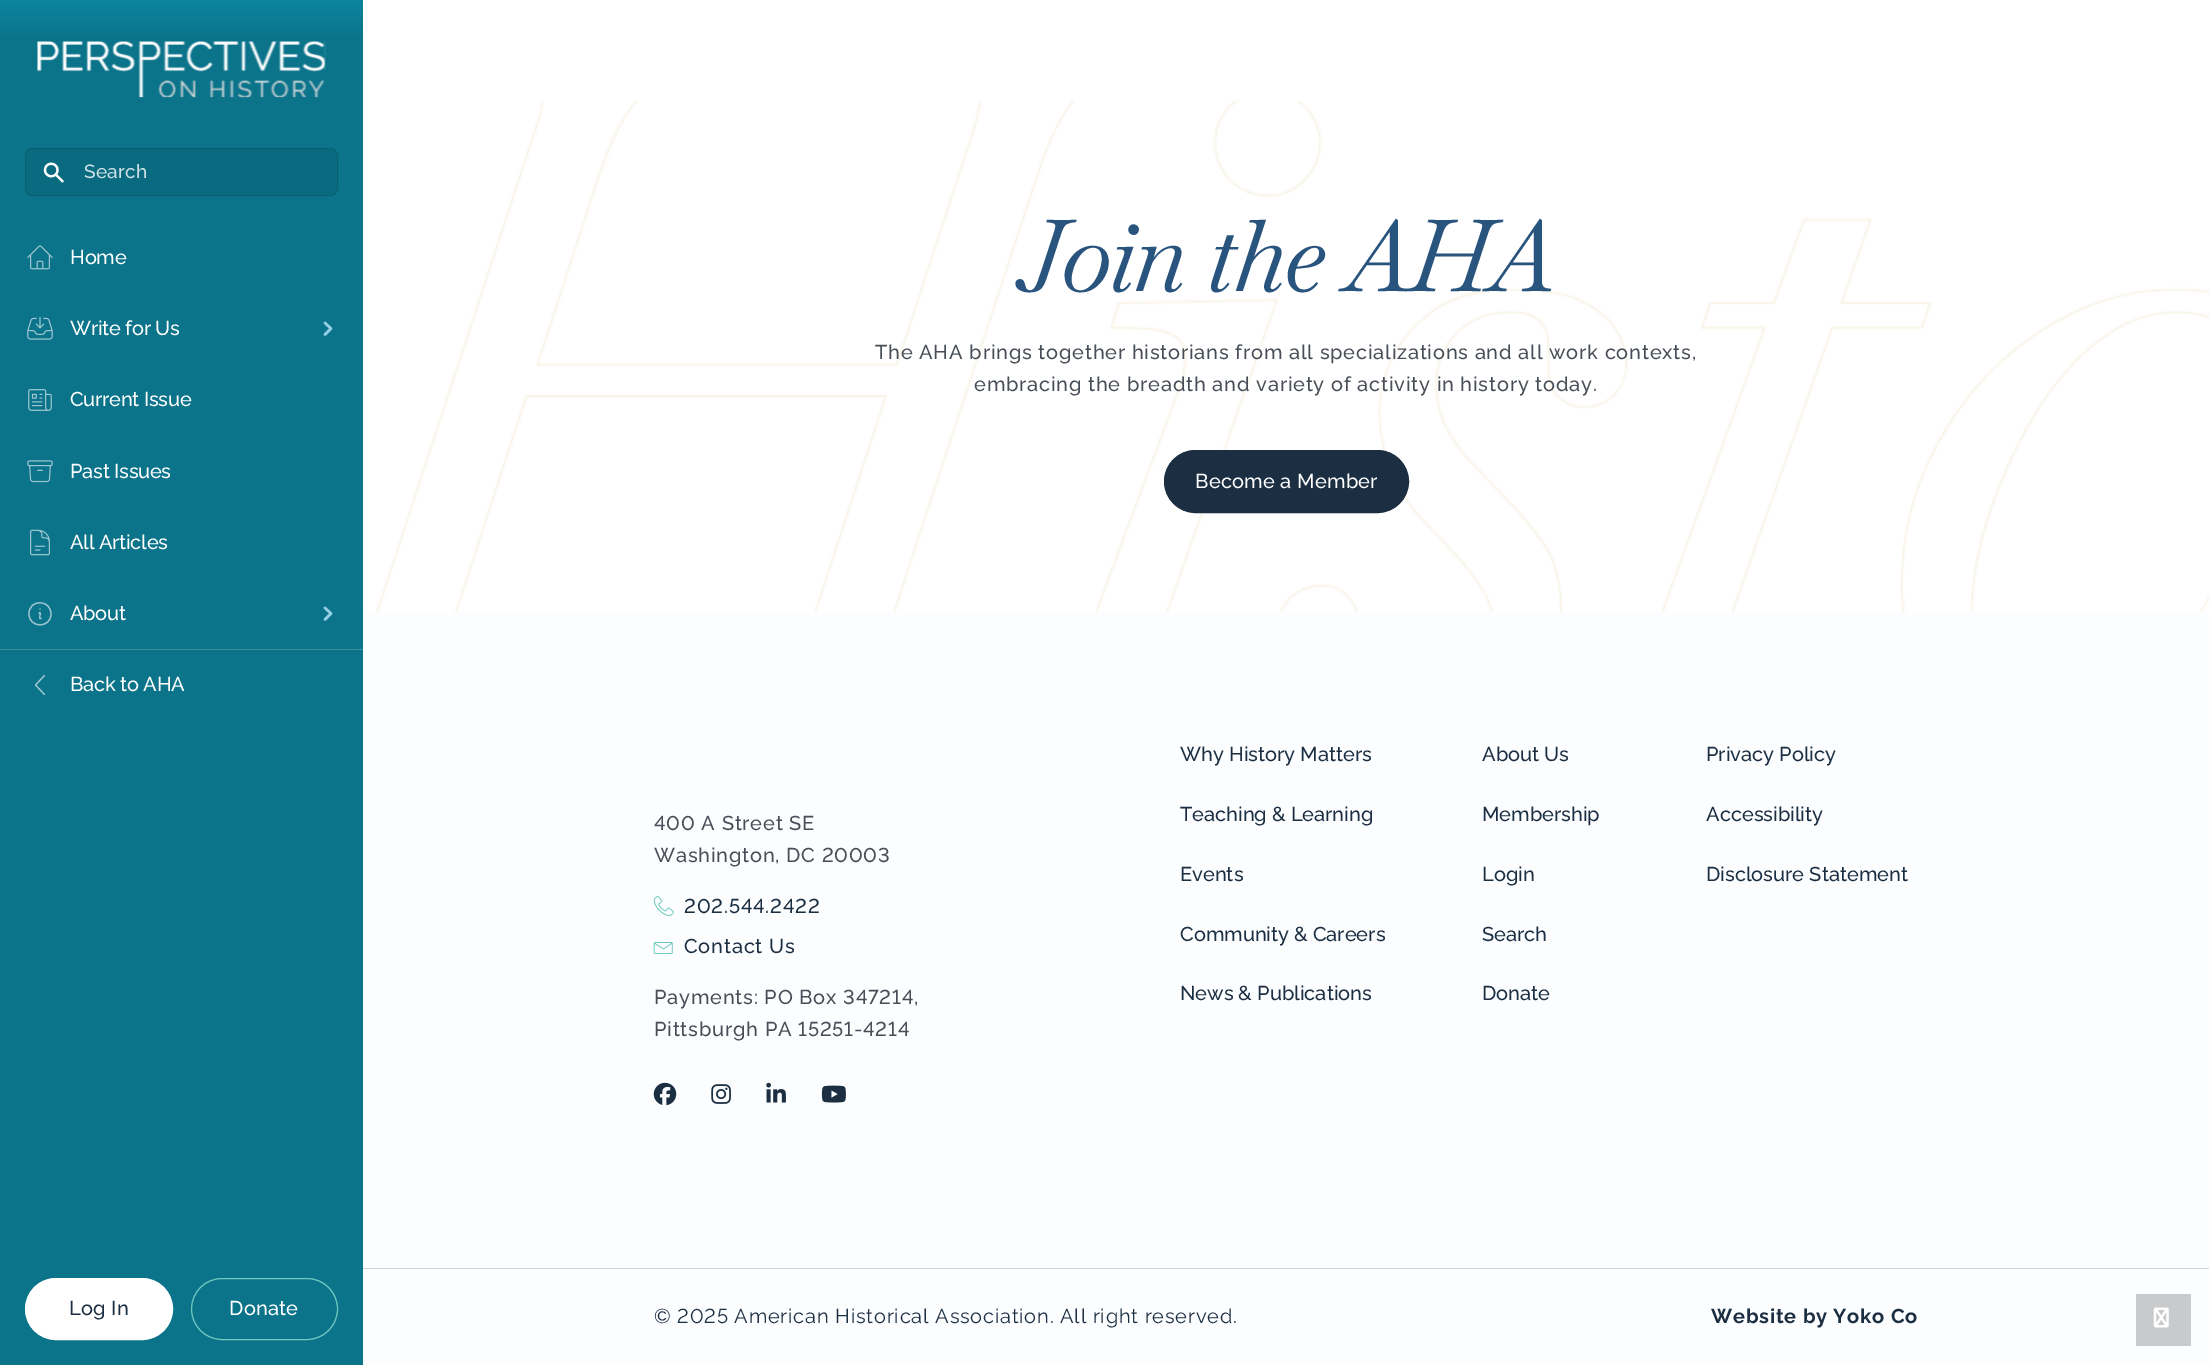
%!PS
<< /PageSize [2209 1365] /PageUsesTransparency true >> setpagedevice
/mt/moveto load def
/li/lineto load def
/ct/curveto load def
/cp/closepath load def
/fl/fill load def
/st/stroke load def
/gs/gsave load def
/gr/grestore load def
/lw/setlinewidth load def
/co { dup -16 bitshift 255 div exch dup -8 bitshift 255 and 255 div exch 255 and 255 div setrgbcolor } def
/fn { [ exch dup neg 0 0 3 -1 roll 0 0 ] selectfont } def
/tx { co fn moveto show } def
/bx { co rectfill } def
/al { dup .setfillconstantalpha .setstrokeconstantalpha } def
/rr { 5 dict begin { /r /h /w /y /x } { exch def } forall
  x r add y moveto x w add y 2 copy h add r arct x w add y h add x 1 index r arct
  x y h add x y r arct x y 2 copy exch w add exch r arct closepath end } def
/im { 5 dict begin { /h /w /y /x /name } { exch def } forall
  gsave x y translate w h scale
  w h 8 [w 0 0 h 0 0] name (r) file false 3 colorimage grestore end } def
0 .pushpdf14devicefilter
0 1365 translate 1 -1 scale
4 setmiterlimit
0 0 2209 1365 16#FFFFFF bx
gs 0 0 mt 363 0 li 363 1365 li 0 1365 li cp clip newpath
<< /ShadingType 2 /ColorSpace /DeviceRGB /Coords [181 0 181 1365] /Extend [true true] /Function << /FunctionType 3 /Domain [0 1] /Functions [<< /FunctionType 2 /Domain [0 1] /C0 [.051 .518 .62] /C1 [.043 .451 .541] /N 1 >> << /FunctionType 2 /Domain [0 1] /C0 [.043 .451 .541] /C1 [.043 .451 .541] /N 1 >>] /Bounds [.03] /Encode [0 1 0 1] >> >> shfill gr
(media/1.raw) 37 41 289 57 im
16#0A6A7F co
25 148 313 48 8 rr fl
(media/2.raw) 43 162 21 21 im
0.1 al
16#000000 co
25.5 148.5 312 47 7.5 rr st
1 al
(media/3.raw) 27 245 26 25 im
(media/4.raw) 27 317 26 23 im
16#96CEE4 co
2.5 lw
1 setlinecap
1 setlinejoin
325 323 mt 331 328.5 li 325 334.5 li st
(media/5.raw) 28 389 24 22 im
(media/6.raw) 27 460 26 23 im
(media/7.raw) 30 529 20 27 im
16#9DC7D0 co
1.2 lw
39 613 mt 42.5 611 37.5 620 41 618.5 ct 51 614 mt 51 628.5 29 628.5 29 614 ct 28.5 599 51 599 51 614 ct cp 40 609 mt 40 609 li cp st
16#96CEE4 co
2.5 lw
325 608 mt 331 613.5 li 325 619.5 li st
0 649 363 1 16#3C8FA1 bx
16#9DC7D0 co
1.2 lw
44.5 694.5 mt 35.5 685 li 44.5 675.5 li st
16#FFFFFF co
25.5 1278.5 147 61 30.5 rr gs fl gr
1 lw
0 setlinecap
0 setlinejoin
st
16#70C9BF co
191.5 1278.5 146 61 30.5 rr st
(media/8.raw) 375 101 1834 511 im
16#1C2F42 co
1164.5 450.5 244 62 31 rr gs fl gr
st
363 613 1846 655 16#FBFDFF bx
(media/9.raw) 653 896 21 20 im
(media/10.raw) 653 942 20 12 im
(media/11.raw) 653 1082 24 24 im
(media/12.raw) 711 1084 20 20 im
(media/13.raw) 766 1082 20 21 im
(media/14.raw) 821 1085 25 18 im
363 1268 1846 1 16#D2D5D9 bx
363 1269 1846 96 16#FBFDFF bx
2136 1294 55 52 16#C9CACC bx
(media/15.raw) 2153 1307 16 21 im
/Raleway-Medium 19 fn
16#CEE1E5 co
84 178 mt .25 0 (Search) ashow
/Raleway-Medium 20 fn
16#FFFFFF co
70 264 mt -.25 0 (Home) ashow
70 335 mt -.25 0 (Write for Us) ashow
70 406 mt -.25 0 (Current Issue) ashow
70 478 mt -.25 0 (Past Issues) ashow
70 549 mt -.25 0 (All Articles) ashow
70 620 mt -.25 0 (About) ashow
70 691 mt -.25 0 (Back to AHA) ashow
16#1C2F42 co
69 1315 mt .25 0 (Log In) ashow
16#FFFFFF co
229 1315 mt .25 0 (Donate) ashow
/Baskervville-Italic 100 fn
16#29547E co
1021 291 mt -3 0 (Join the AHA) ashow
/Raleway-Medium 20 fn
16#484E57 co
875 359 mt .8 0 (The AHA brings together historians from all specializations and all work contexts,) ashow
974 391 mt .8 0 (embracing the breadth and variety of activity in history today.) ashow
16#FFFFFF co
1195 488 mt .25 0 (Become a Member) ashow
/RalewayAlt-Medium 20 fn
16#484E57 co
654 830 mt .8 0 (400 A Street SE) ashow
654 862 mt .8 0 (Washington, DC 20003) ashow
16#1C2F42 co
684 913 mt .8 0 (202.544.2422) ashow
/Raleway-Medium 20 fn
684 953 mt .8 0 (Contact Us) ashow
/RalewayAlt-Medium 20 fn
16#484E57 co
654 1004 mt .8 0 (Payments: PO Box 347214,) ashow
654 1036 mt .8 0 (Pittsburgh PA 15251-4214) ashow
(Why History Matters) 1180 761 /Raleway-Medium 20 16#1C2F42 tx
(Teaching & Learning) 1180 821 /Raleway-Medium 20 16#1C2F42 tx
(Events) 1180 881 /Raleway-Medium 20 16#1C2F42 tx
(Community & Careers) 1180 941 /Raleway-Medium 20 16#1C2F42 tx
(News & Publications) 1180 1000 /Raleway-Medium 20 16#1C2F42 tx
(About Us) 1482 761 /Raleway-Medium 20 16#1C2F42 tx
(Membership) 1482 821 /Raleway-Medium 20 16#1C2F42 tx
(Login) 1482 881 /Raleway-Medium 20 16#1C2F42 tx
(Search) 1482 941 /Raleway-Medium 20 16#1C2F42 tx
(Donate) 1482 1000 /Raleway-Medium 20 16#1C2F42 tx
(Privacy Policy) 1706 761 /Raleway-Medium 20 16#1C2F42 tx
(Accessibility) 1706 821 /Raleway-Medium 20 16#1C2F42 tx
(Disclosure Statement) 1706 881 /Raleway-Medium 20 16#1C2F42 tx
/RalewayAlt-Regular 20 fn
654 1323 mt .8 0 (© 2025 American Historical Association. All right reserved.) ashow
/Raleway-Bold 20 fn
1711 1323 mt .8 0 (Website by Yoko Co) ashow
.poppdf14devicefilter showpage
